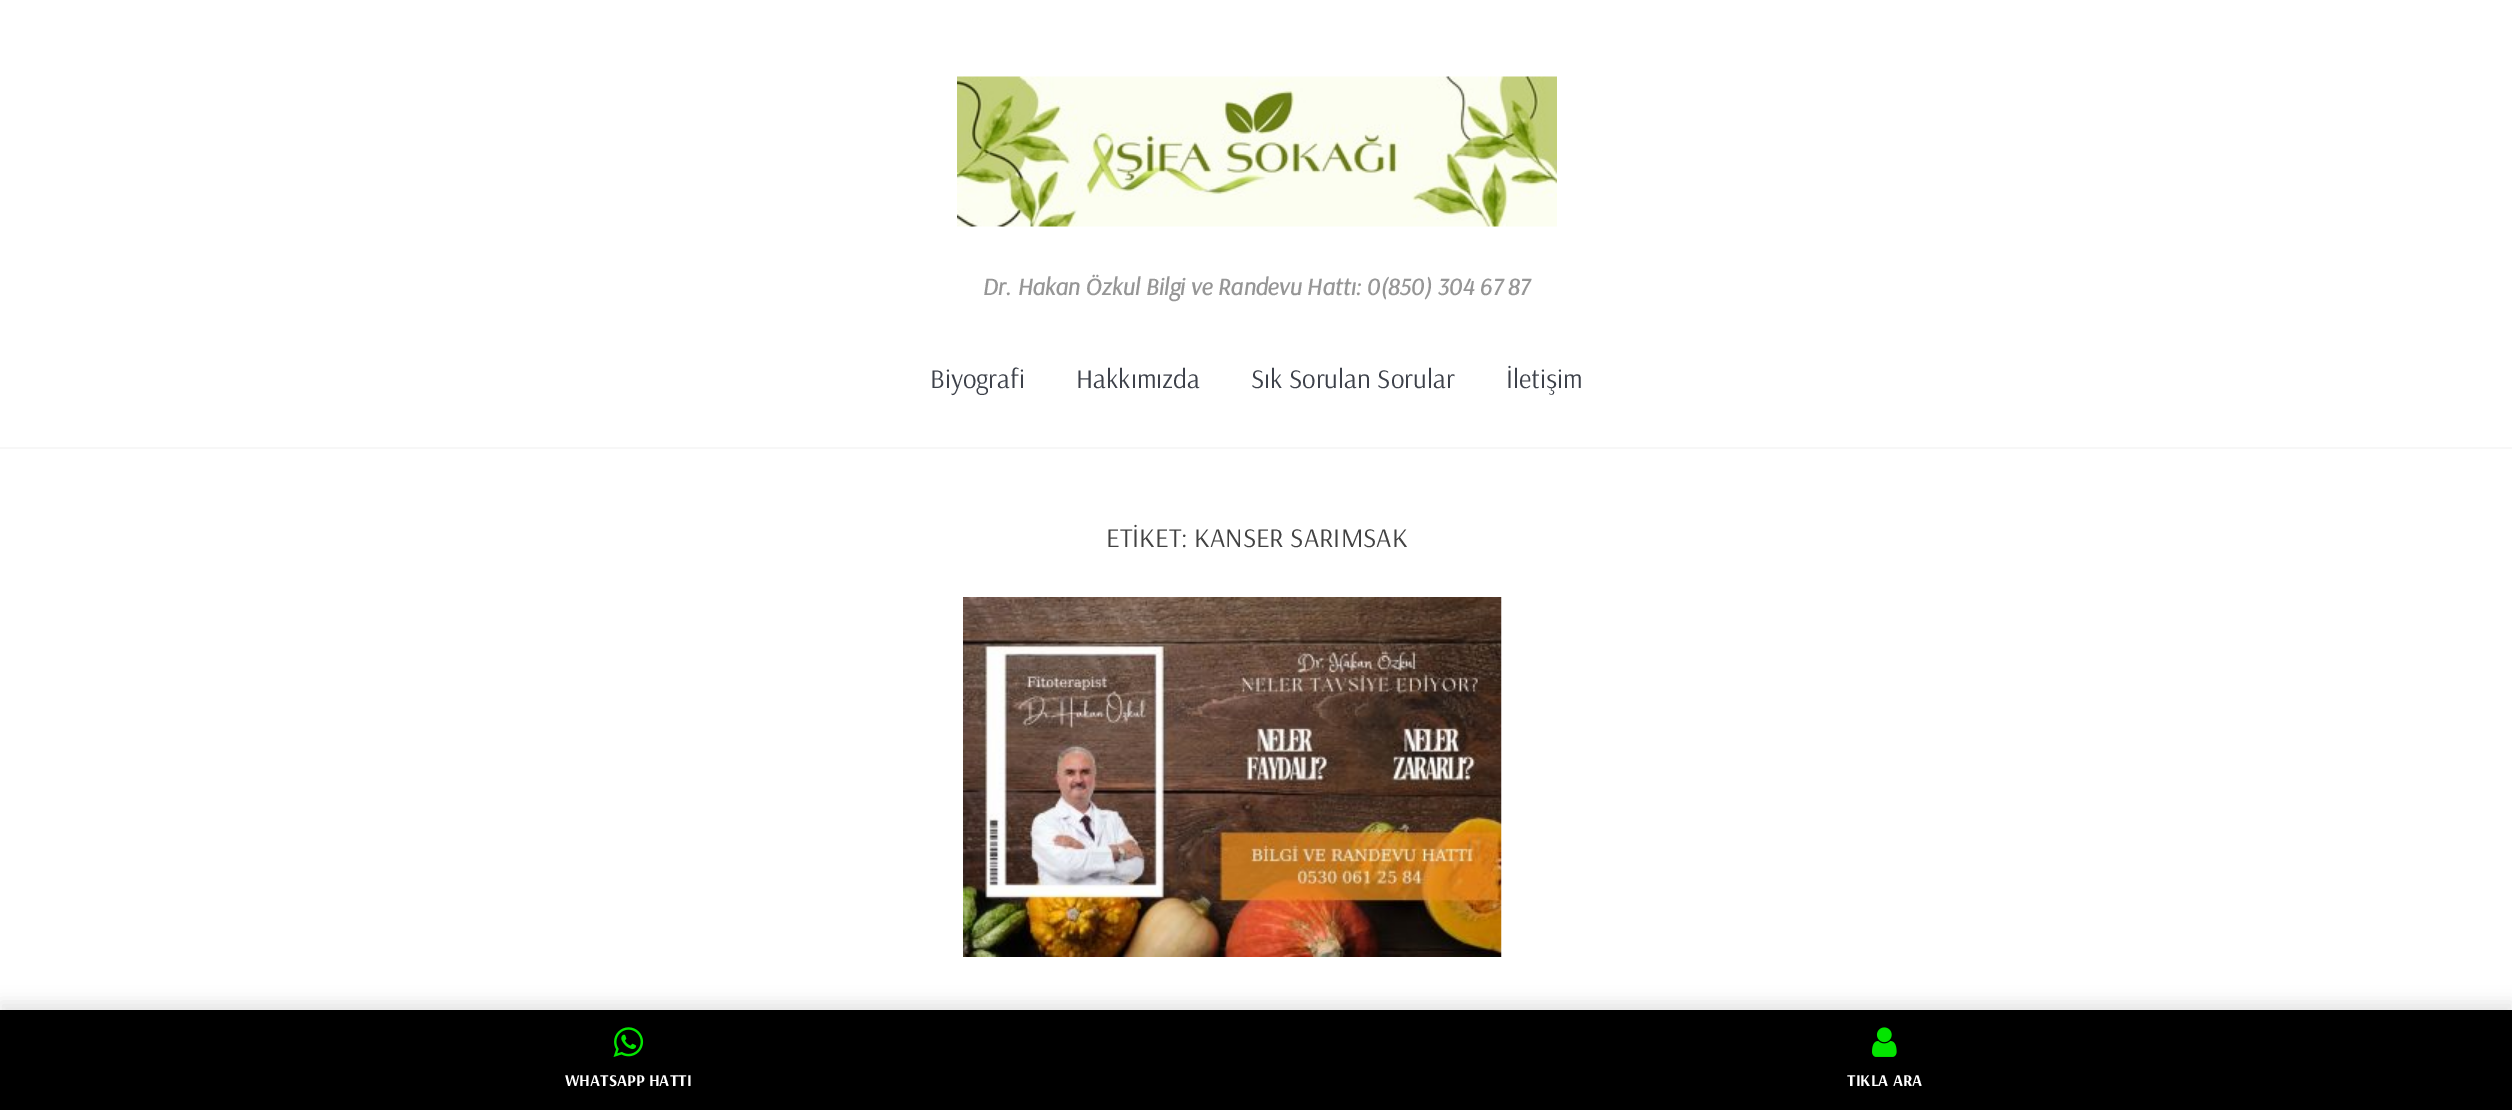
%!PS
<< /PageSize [2512 1110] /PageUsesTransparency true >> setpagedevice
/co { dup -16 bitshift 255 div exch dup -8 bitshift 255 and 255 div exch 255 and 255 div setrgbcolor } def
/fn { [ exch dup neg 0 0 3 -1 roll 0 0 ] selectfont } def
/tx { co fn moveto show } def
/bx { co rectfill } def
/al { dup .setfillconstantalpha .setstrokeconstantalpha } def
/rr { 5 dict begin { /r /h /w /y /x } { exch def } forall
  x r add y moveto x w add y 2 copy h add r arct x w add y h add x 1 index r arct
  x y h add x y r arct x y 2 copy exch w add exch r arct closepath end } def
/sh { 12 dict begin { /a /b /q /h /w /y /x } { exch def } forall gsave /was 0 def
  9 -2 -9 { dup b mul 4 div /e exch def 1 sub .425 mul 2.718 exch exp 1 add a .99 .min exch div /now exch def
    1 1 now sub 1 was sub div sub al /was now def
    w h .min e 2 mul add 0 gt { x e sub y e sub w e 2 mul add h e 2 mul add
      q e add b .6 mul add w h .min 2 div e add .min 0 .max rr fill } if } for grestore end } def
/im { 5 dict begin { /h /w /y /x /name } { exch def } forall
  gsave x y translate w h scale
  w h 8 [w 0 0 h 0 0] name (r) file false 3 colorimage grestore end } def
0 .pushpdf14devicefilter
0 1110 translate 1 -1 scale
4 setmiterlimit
0 0 2512 1110 16#FFFFFF bx
(media/1.raw) 957 76 600 151 im
0 447 2512 2 16#F7F7F7 bx
(media/2.raw) 963 597 539 360 im
16#000000 co
0 1002 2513 101 0 7.5 .1 sh
0 1010 2512 100 16#000000 bx
(media/3.raw) 613 1027 31 30 im
(media/4.raw) 1872 1027 25 30 im
(Dr. Hakan Özkul Bilgi ve Randevu Hattı: 0\(850\) 304 67 87) 982 295 /Arsenal-BoldItalic 24 16#969696 tx
(Biyografi) 930 388 /Arsenal-Regular 27 16#3D414A tx
(Hakkımızda) 1076 388 /Arsenal-Regular 27 16#3D414A tx
(Sık Sorulan Sorular) 1251 388 /Arsenal-Regular 27 16#3D414A tx
(İletişim) 1506 388 /Arsenal-Regular 27 16#3D414A tx
(ETİKET: KANSER SARIMSAK) 1106 547 /Arsenal-Regular 27 16#424242 tx
(WHATSAPP HATTI) 565 1086 /Arsenal-Bold 16.5 16#FFFFFF tx
(TIKLA ARA) 1847 1086 /Arsenal-Bold 16.5 16#FFFFFF tx
.poppdf14devicefilter showpage
